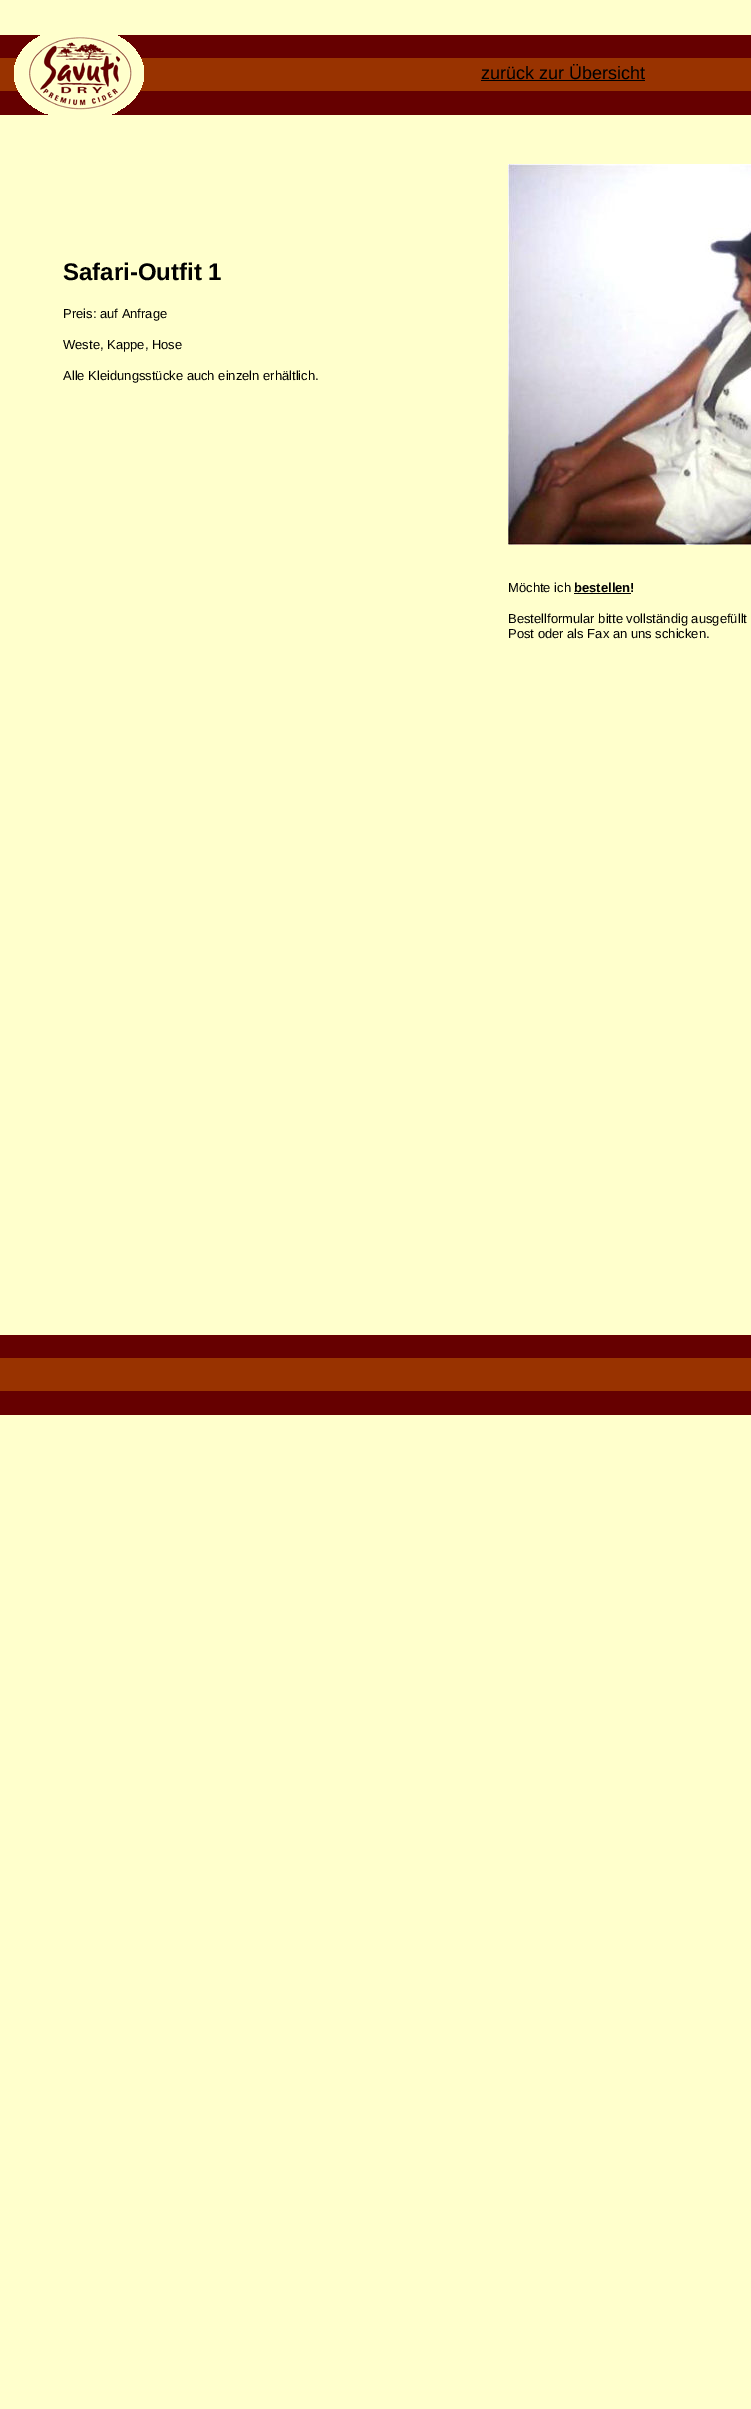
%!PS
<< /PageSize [751 2409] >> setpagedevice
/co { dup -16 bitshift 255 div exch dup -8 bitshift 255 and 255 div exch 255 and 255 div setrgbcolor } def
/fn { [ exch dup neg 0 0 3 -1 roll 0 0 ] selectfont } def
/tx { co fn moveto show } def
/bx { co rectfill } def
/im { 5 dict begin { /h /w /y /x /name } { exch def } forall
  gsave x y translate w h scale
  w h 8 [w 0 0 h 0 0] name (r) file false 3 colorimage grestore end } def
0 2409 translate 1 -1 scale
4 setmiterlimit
0 0 751 2409 16#FFFFFF bx
(media/1.raw) 0 0 751 2409 im
(media/2.raw) 14 35 130 80 im
481 80 164 1 16#000000 bx
(media/3.raw) 508 164 243 381 im
574 593 57 1 16#000000 bx
(zurück zur Übersicht) 481 79 /LiberationSans-Regular 18 16#000000 tx
(Safari-Outfit 1) 63 280 /LiberationSans-Bold 24 16#000000 tx
(Preis: auf Anfrage) 63 318 /LiberationSans-Regular 13 16#000000 tx
(Weste, Kappe, Hose) 63 349 /LiberationSans-Regular 13 16#000000 tx
(Alle Kleidungsstücke auch einzeln erhältlich.) 63 380 /LiberationSans-Regular 13 16#000000 tx
(Möchte ich) 508 592 /LiberationSans-Regular 13 16#000000 tx
(bestellen!) 574 592 /LiberationSans-Bold 13 16#000000 tx
(Bestellformular bitte vollständig ausgefüllt) 508 623 /LiberationSans-Regular 13 16#000000 tx
(Post oder als Fax an uns schicken.) 508 638 /LiberationSans-Regular 13 16#000000 tx
showpage
